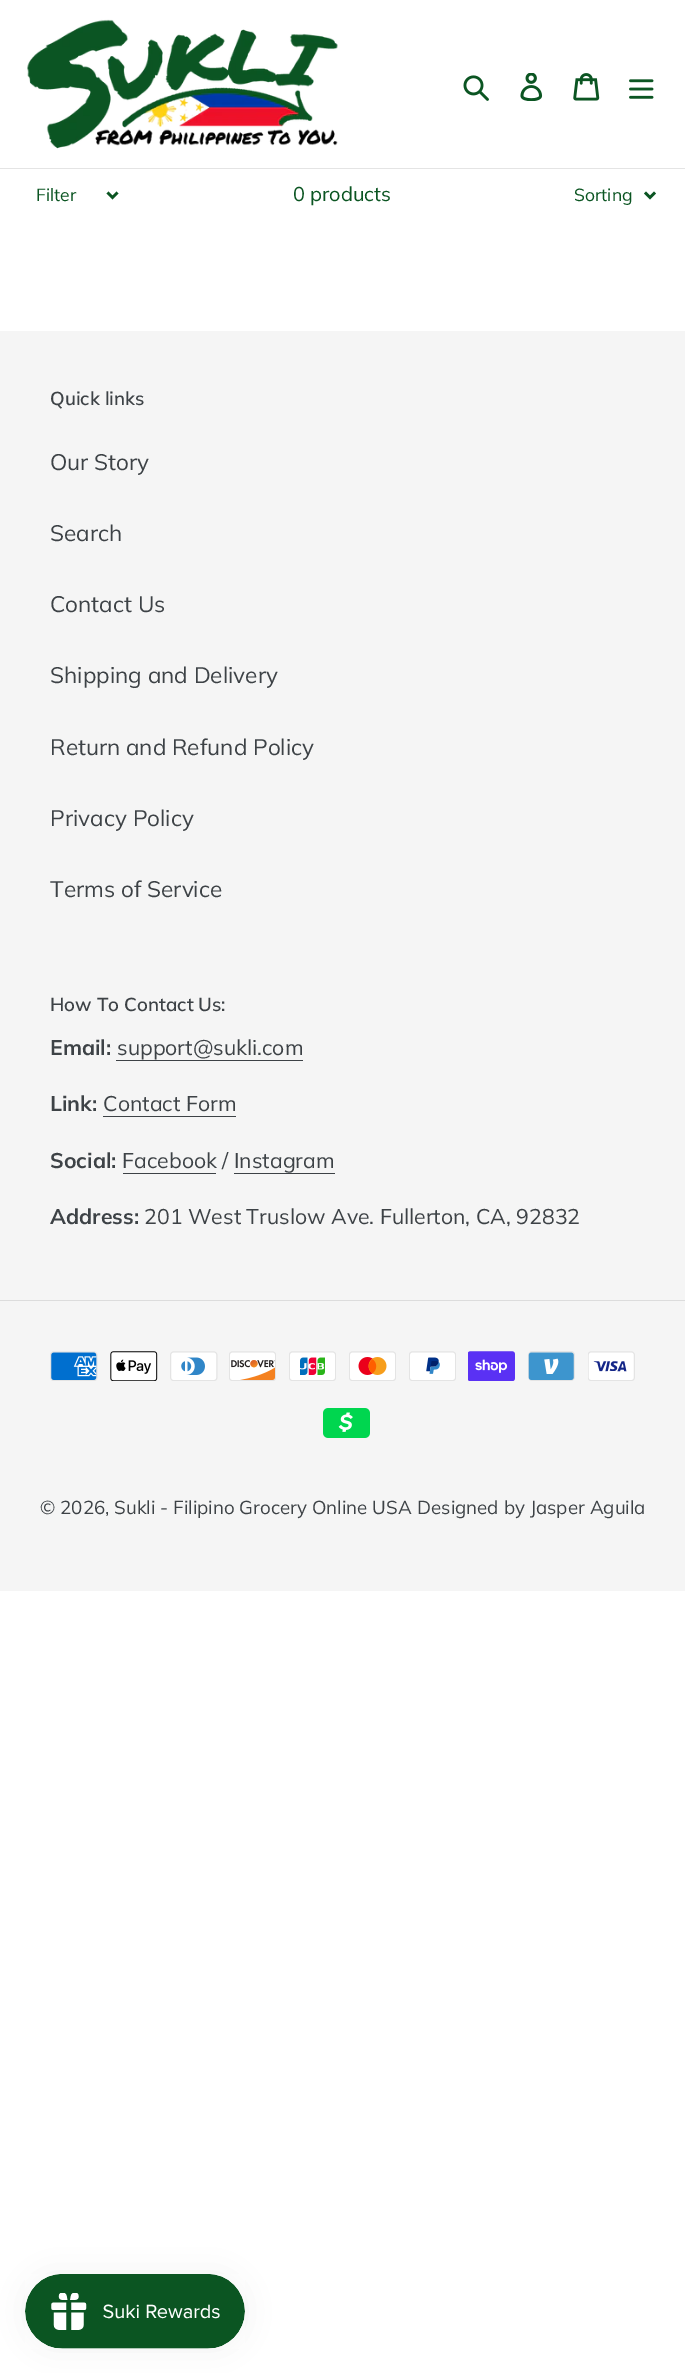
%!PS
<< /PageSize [685 2373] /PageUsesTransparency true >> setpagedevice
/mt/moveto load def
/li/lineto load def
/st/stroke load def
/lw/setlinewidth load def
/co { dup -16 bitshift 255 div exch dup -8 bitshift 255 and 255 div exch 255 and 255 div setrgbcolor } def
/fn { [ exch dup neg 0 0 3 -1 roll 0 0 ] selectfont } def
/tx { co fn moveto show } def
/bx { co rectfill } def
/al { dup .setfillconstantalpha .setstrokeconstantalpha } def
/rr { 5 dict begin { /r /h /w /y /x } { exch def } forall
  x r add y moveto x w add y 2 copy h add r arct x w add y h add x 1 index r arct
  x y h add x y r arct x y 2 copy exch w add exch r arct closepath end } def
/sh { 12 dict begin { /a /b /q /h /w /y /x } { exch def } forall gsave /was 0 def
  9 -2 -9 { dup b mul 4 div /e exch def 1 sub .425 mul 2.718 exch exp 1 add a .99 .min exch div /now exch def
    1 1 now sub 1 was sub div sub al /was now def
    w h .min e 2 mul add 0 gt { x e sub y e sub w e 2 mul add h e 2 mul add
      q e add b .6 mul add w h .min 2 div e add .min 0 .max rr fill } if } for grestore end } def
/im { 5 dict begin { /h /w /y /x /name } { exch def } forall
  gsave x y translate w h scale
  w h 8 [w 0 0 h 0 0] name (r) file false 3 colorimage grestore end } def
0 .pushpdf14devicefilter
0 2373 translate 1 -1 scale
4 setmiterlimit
0 0 685 2373 16#FFFFFF bx
0 168 685 1 16#E4E4E4 bx
(media/1.raw) 27 19 311 130 im
(media/2.raw) 463 75 26 26 im
(media/3.raw) 520 73 23 28 im
(media/4.raw) 573 73 27 28 im
(media/5.raw) 629 79 25 20 im
16#0B5522 co
2.5 lw
107.5 192.5 mt 112.5 197.5 li 117.5 192.5 li st
645 192.5 mt 650 197.5 li 655 192.5 li st
0 331 685 1260 16#F5F5F5 bx
116 1060 187 1 16#3D4246 bx
103 1116 133 1 16#3D4246 bx
123 1173 93 1 16#3D4246 bx
234 1173 101 1 16#3D4246 bx
0 1300 685 1 16#DCDCDC bx
(media/6.raw) 50 1351 48 30 im
(media/7.raw) 110 1351 48 30 im
(media/8.raw) 170 1351 48 30 im
(media/9.raw) 229 1351 47 30 im
(media/10.raw) 289 1351 47 30 im
(media/11.raw) 349 1351 47 30 im
(media/12.raw) 409 1351 47 30 im
(media/13.raw) 468 1351 47 30 im
(media/14.raw) 528 1351 47 30 im
(media/15.raw) 588 1351 47 30 im
(media/16.raw) 323 1408 47 30 im
16#000000 co
25 2274 220 75 37.5 15.5 .05 sh
(media/17.raw) 25 2274 220 75 im
(Filter) 36 201 /Muli-Regular 17.5 16#0B5522 tx
(0 products) 293 201 /Muli-Regular 20 16#0B5522 tx
(Sorting) 574 201 /Muli-Regular 17.5 16#0B5522 tx
(Quick links) 50 405 /Muli-SemiBold 18.75 16#3D4246 tx
(Our Story) 50 470 /Muli-Regular 22.5 16#3D4246 tx
(Search) 50 541 /Muli-Regular 22.5 16#3D4246 tx
(Contact Us) 50 612 /Muli-Regular 22.5 16#3D4246 tx
(Shipping and Delivery) 50 683 /Muli-Regular 22.5 16#3D4246 tx
(Return and Refund Policy) 50 755 /Muli-Regular 22.5 16#3D4246 tx
(Privacy Policy) 50 826 /Muli-Regular 22.5 16#3D4246 tx
(Terms of Service) 50 897 /Muli-Regular 22.5 16#3D4246 tx
(How To Contact Us:) 50 1011 /Muli-SemiBold 18.75 16#3D4246 tx
(Email:) 50 1055 /Muli-Bold 21.25 16#3D4246 tx
(support@sukli.com) 117 1055 /Muli-Regular 21.25 16#3D4246 tx
(Link:) 50 1111 /Muli-Bold 21.25 16#3D4246 tx
(Contact Form) 103 1111 /Muli-Regular 21.25 16#3D4246 tx
(Social:) 50 1168 /Muli-Bold 21.25 16#3D4246 tx
(Facebook / Instagram) 122 1168 /Muli-Regular 21.25 16#3D4246 tx
(Address:) 50 1224 /Muli-Bold 21.25 16#3D4246 tx
(201 West Truslow Ave. Fullerton, CA, 92832) 144 1224 /Muli-Regular 21.25 16#3D4246 tx
(© 2026, Sukli - Filipino Grocery Online USA) 40 1514 /Muli-Regular 18.75 16#3D4246 tx
(Designed by Jasper Aguila) 417 1514 /Muli-Regular 18.75 16#3D4246 tx
.poppdf14devicefilter showpage
